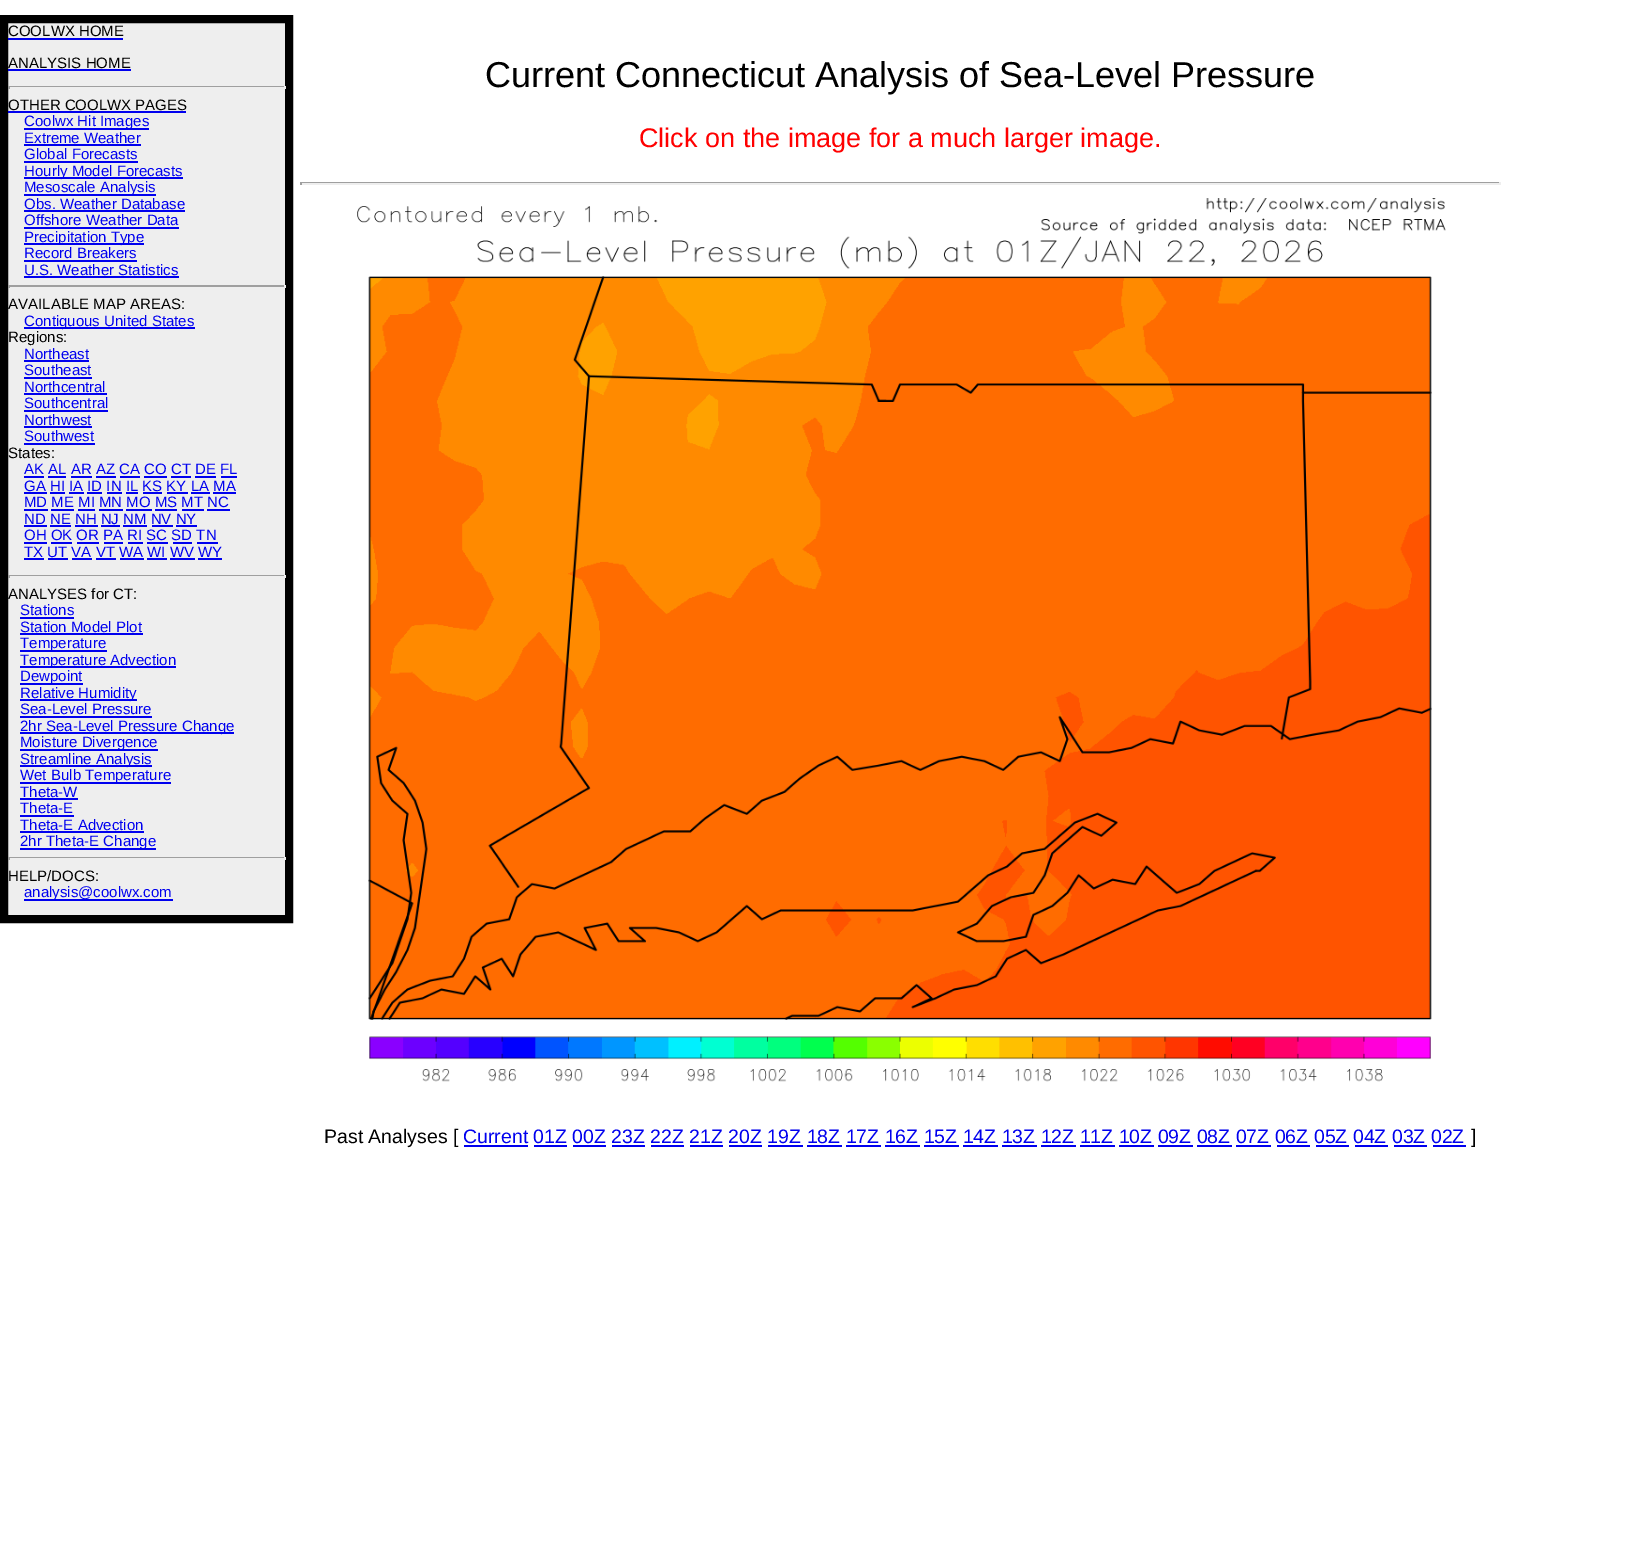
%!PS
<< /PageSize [1635 1543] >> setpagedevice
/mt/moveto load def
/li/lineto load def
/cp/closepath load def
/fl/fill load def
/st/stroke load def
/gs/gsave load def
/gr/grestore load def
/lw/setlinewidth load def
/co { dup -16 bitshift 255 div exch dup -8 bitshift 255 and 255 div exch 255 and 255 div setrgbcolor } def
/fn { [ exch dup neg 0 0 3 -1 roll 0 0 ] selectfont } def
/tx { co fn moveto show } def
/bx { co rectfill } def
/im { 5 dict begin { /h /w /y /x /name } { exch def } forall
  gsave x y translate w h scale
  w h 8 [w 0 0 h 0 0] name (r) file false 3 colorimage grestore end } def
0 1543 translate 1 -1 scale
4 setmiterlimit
0 0 1635 1543 16#FFFFFF bx
16#EEEEEE co
4 19 mt 289 19 li 289 919 li 4 919 li cp gs fl gr
16#000000 co
8 lw
st
8 38 115 2 16#0000EE bx
8 69 123 2 16#0000EE bx
8 86 277 1 16#9F9F9F bx
284 86 2 3 16#EEEEEE bx
8 86 2 3 16#9F9F9F bx
8 111 178 2 16#0000EE bx
24 128 125 2 16#0000EE bx
24 144 117 2 16#0000EE bx
24 161 114 2 16#0000EE bx
24 177 159 2 16#0000EE bx
24 194 132 2 16#0000EE bx
24 210 161 2 16#0000EE bx
24 227 155 2 16#0000EE bx
24 243 120 2 16#0000EE bx
24 260 113 2 16#0000EE bx
24 276 155 2 16#0000EE bx
8 285 277 2 16#9F9F9F bx
284 285 2 3 16#EEEEEE bx
8 285 2 3 16#9F9F9F bx
24 327 171 2 16#0000EE bx
24 360 65 2 16#0000EE bx
24 377 68 2 16#0000EE bx
24 393 83 2 16#0000EE bx
24 410 84 2 16#0000EE bx
24 426 68 2 16#0000EE bx
24 443 71 2 16#0000EE bx
24 476 20 2 16#0000EE bx
48 476 18 2 16#0000EE bx
71 476 21 2 16#0000EE bx
96 476 20 2 16#0000EE bx
120 476 20 2 16#0000EE bx
144 476 23 2 16#0000EE bx
171 476 20 2 16#0000EE bx
195 476 21 2 16#0000EE bx
221 476 16 2 16#0000EE bx
24 492 23 2 16#0000EE bx
50 492 15 2 16#0000EE bx
69 492 15 2 16#0000EE bx
87 492 15 2 16#0000EE bx
107 492 15 2 16#0000EE bx
126 492 12 2 16#0000EE bx
143 492 19 2 16#0000EE bx
167 492 21 2 16#0000EE bx
191 492 19 2 16#0000EE bx
213 492 23 2 16#0000EE bx
24 509 24 2 16#0000EE bx
51 509 23 2 16#0000EE bx
78 509 17 2 16#0000EE bx
99 509 24 2 16#0000EE bx
126 509 26 2 16#0000EE bx
155 509 22 2 16#0000EE bx
182 509 22 2 16#0000EE bx
207 509 23 2 16#0000EE bx
24 525 23 2 16#0000EE bx
50 525 21 2 16#0000EE bx
75 525 23 2 16#0000EE bx
101 525 19 2 16#0000EE bx
123 525 24 2 16#0000EE bx
152 525 21 2 16#0000EE bx
176 525 21 2 16#0000EE bx
24 542 23 2 16#0000EE bx
51 542 21 2 16#0000EE bx
77 542 22 2 16#0000EE bx
104 542 19 2 16#0000EE bx
128 542 15 2 16#0000EE bx
147 542 21 2 16#0000EE bx
173 542 19 2 16#0000EE bx
197 542 21 2 16#0000EE bx
24 558 20 2 16#0000EE bx
48 558 20 2 16#0000EE bx
72 558 20 2 16#0000EE bx
96 558 20 2 16#0000EE bx
120 558 24 2 16#0000EE bx
147 558 20 2 16#0000EE bx
170 558 25 2 16#0000EE bx
198 558 24 2 16#0000EE bx
8 575 277 1 16#9F9F9F bx
284 575 2 3 16#EEEEEE bx
8 575 2 3 16#9F9F9F bx
20 617 54 2 16#0000EE bx
20 633 123 2 16#0000EE bx
20 650 87 2 16#0000EE bx
20 666 156 2 16#0000EE bx
20 683 63 2 16#0000EE bx
20 699 117 2 16#0000EE bx
20 716 132 2 16#0000EE bx
20 732 214 2 16#0000EE bx
20 749 138 2 16#0000EE bx
20 765 132 2 16#0000EE bx
20 782 151 2 16#0000EE bx
20 798 58 2 16#0000EE bx
20 815 54 2 16#0000EE bx
20 831 124 2 16#0000EE bx
20 848 136 2 16#0000EE bx
8 857 277 1 16#9F9F9F bx
284 857 2 3 16#EEEEEE bx
8 857 2 3 16#9F9F9F bx
24 899 149 2 16#0000EE bx
300 182 1200 1 16#9F9F9F bx
1499 182 2 3 16#EEEEEE bx
300 183 1200 2 16#EEEEEE bx
300 182 2 3 16#9F9F9F bx
(media/1.raw) 357 198 1089 884 im
464 1145 64 2 16#0000EE bx
534 1145 33 2 16#0000EE bx
573 1145 33 2 16#0000EE bx
612 1145 33 2 16#0000EE bx
651 1145 33 2 16#0000EE bx
690 1145 33 2 16#0000EE bx
729 1145 33 2 16#0000EE bx
768 1145 35 2 16#0000EE bx
807 1145 35 2 16#0000EE bx
846 1145 35 2 16#0000EE bx
885 1145 35 2 16#0000EE bx
924 1145 35 2 16#0000EE bx
963 1145 35 2 16#0000EE bx
1002 1145 35 2 16#0000EE bx
1041 1145 35 2 16#0000EE bx
1080 1145 35 2 16#0000EE bx
1119 1145 35 2 16#0000EE bx
1158 1145 35 2 16#0000EE bx
1197 1145 35 2 16#0000EE bx
1236 1145 35 2 16#0000EE bx
1277 1145 33 2 16#0000EE bx
1316 1145 33 2 16#0000EE bx
1355 1145 33 2 16#0000EE bx
1394 1145 33 2 16#0000EE bx
1433 1145 33 2 16#0000EE bx
(COOLWX HOME) 8 36 /LiberationSans-Regular 15 16#000000 tx
(ANALYSIS HOME) 8 68 /LiberationSans-Regular 15 16#000000 tx
(OTHER COOLWX PAGES) 8 110 /LiberationSans-Regular 15 16#000000 tx
(Coolwx Hit Images) 24 126 /LiberationSans-Regular 15 16#0000EE tx
(Extreme Weather) 24 143 /LiberationSans-Regular 15 16#0000EE tx
(Global Forecasts) 24 159 /LiberationSans-Regular 15 16#0000EE tx
(Hourly Model Forecasts) 24 176 /LiberationSans-Regular 15 16#0000EE tx
(Mesoscale Analysis) 24 192 /LiberationSans-Regular 15 16#0000EE tx
(Obs. Weather Database) 24 209 /LiberationSans-Regular 15 16#0000EE tx
(Offshore Weather Data) 24 225 /LiberationSans-Regular 15 16#0000EE tx
(Precipitation Type) 24 242 /LiberationSans-Regular 15 16#0000EE tx
(Record Breakers) 24 258 /LiberationSans-Regular 15 16#0000EE tx
(U.S. Weather Statistics) 24 275 /LiberationSans-Regular 15 16#0000EE tx
(AVAILABLE MAP AREAS:) 8 309 /LiberationSans-Regular 15 16#000000 tx
(Contiguous United States) 24 326 /LiberationSans-Regular 15 16#0000EE tx
(Regions:) 8 342 /LiberationSans-Regular 15 16#000000 tx
(Northeast) 24 359 /LiberationSans-Regular 15 16#0000EE tx
(Southeast) 24 375 /LiberationSans-Regular 15 16#0000EE tx
(Northcentral) 24 392 /LiberationSans-Regular 15 16#0000EE tx
(Southcentral) 24 408 /LiberationSans-Regular 15 16#0000EE tx
(Northwest) 24 425 /LiberationSans-Regular 15 16#0000EE tx
(Southwest) 24 441 /LiberationSans-Regular 15 16#0000EE tx
(States:) 8 458 /LiberationSans-Regular 15 16#000000 tx
(AK AL AR AZ CA CO CT DE FL) 24 474 /LiberationSans-Regular 15 16#0000EE tx
(GA HI IA ID IN IL KS KY LA MA) 24 491 /LiberationSans-Regular 15 16#0000EE tx
(MD ME MI MN MO MS MT NC) 24 507 /LiberationSans-Regular 15 16#0000EE tx
(ND NE NH NJ NM NV NY) 24 524 /LiberationSans-Regular 15 16#0000EE tx
(OH OK OR PA RI SC SD TN) 24 540 /LiberationSans-Regular 15 16#0000EE tx
(TX UT VA VT WA WI WV WY) 24 557 /LiberationSans-Regular 15 16#0000EE tx
(ANALYSES for CT:) 8 599 /LiberationSans-Regular 15 16#000000 tx
(Stations) 20 615 /LiberationSans-Regular 15 16#0000EE tx
(Station Model Plot) 20 632 /LiberationSans-Regular 15 16#0000EE tx
(Temperature) 20 648 /LiberationSans-Regular 15 16#0000EE tx
(Temperature Advection) 20 665 /LiberationSans-Regular 15 16#0000EE tx
(Dewpoint) 20 681 /LiberationSans-Regular 15 16#0000EE tx
(Relative Humidity) 20 698 /LiberationSans-Regular 15 16#0000EE tx
(Sea-Level Pressure) 20 714 /LiberationSans-Regular 15 16#0000EE tx
(2hr Sea-Level Pressure Change) 20 731 /LiberationSans-Regular 15 16#0000EE tx
(Moisture Divergence) 20 747 /LiberationSans-Regular 15 16#0000EE tx
(Streamline Analysis) 20 764 /LiberationSans-Regular 15 16#0000EE tx
(Wet Bulb Temperature) 20 780 /LiberationSans-Regular 15 16#0000EE tx
(Theta-W) 20 797 /LiberationSans-Regular 15 16#0000EE tx
(Theta-E) 20 813 /LiberationSans-Regular 15 16#0000EE tx
(Theta-E Advection) 20 830 /LiberationSans-Regular 15 16#0000EE tx
(2hr Theta-E Change) 20 846 /LiberationSans-Regular 15 16#0000EE tx
(HELP/DOCS:) 8 881 /LiberationSans-Regular 15 16#000000 tx
(analysis@coolwx.com) 24 897 /LiberationSans-Regular 15 16#0000EE tx
(Current Connecticut Analysis of Sea-Level Pressure) 485 87 /LiberationSans-Regular 36 16#000000 tx
(Click on the image for a much larger image.) 639 147 /LiberationSans-Regular 27 16#FF0000 tx
(Past Analyses [) 324 1143 /LiberationSans-Regular 19.5 16#000000 tx
(Current 01Z 00Z 23Z 22Z 21Z 20Z 19Z 18Z 17Z 16Z 15Z 14Z 13Z 12Z 11Z 10Z 09Z 08Z 07Z 06Z 05Z 04Z 03Z 02Z) 463 1143 /LiberationSans-Regular 19.5 16#0000EE tx
(]) 1471 1143 /LiberationSans-Regular 19.5 16#000000 tx
showpage
